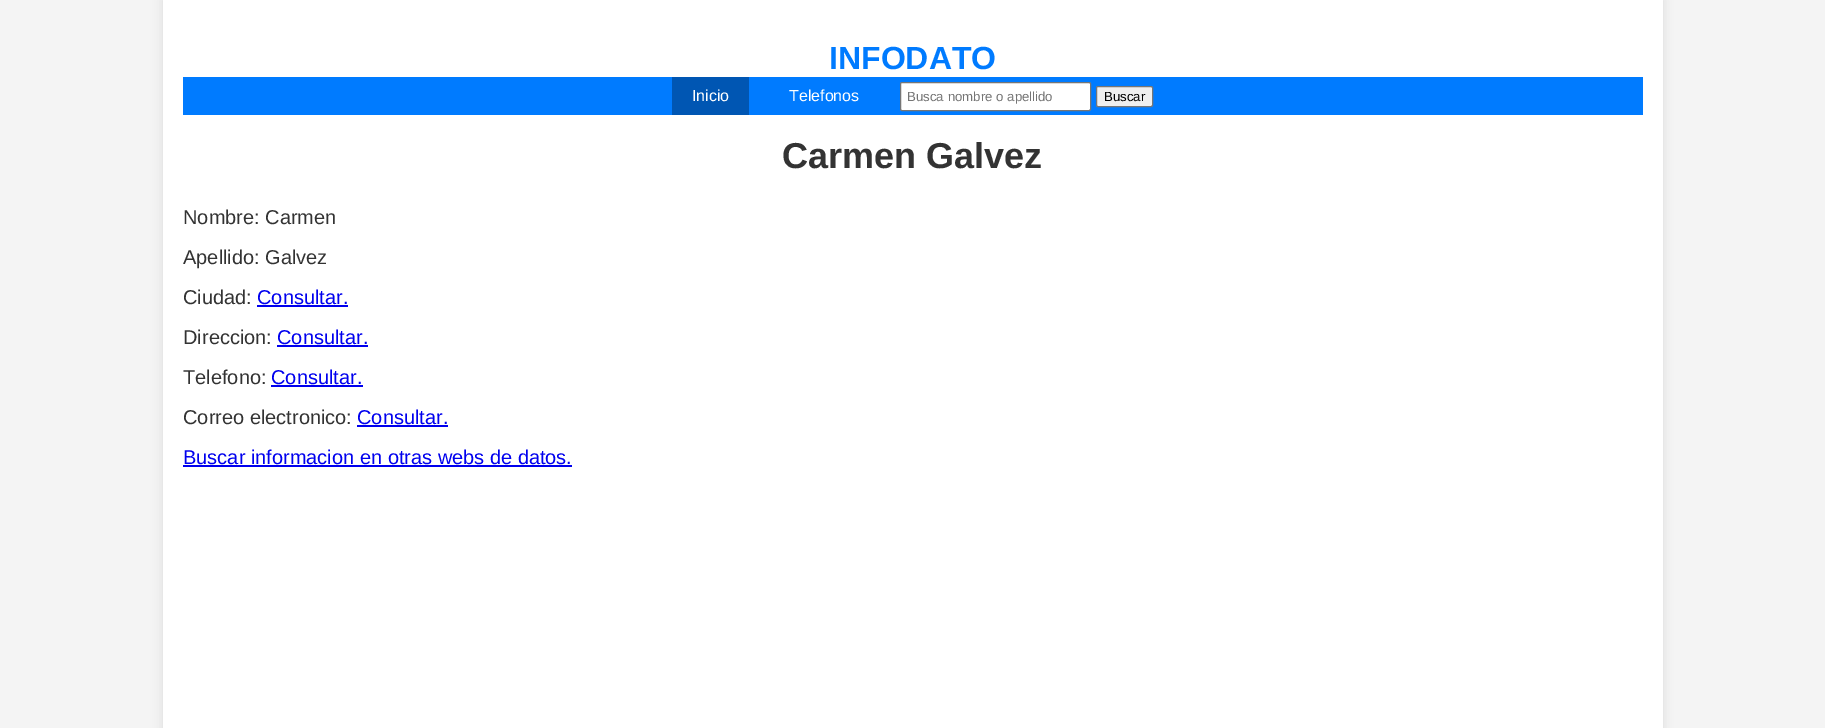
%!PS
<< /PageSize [1825 728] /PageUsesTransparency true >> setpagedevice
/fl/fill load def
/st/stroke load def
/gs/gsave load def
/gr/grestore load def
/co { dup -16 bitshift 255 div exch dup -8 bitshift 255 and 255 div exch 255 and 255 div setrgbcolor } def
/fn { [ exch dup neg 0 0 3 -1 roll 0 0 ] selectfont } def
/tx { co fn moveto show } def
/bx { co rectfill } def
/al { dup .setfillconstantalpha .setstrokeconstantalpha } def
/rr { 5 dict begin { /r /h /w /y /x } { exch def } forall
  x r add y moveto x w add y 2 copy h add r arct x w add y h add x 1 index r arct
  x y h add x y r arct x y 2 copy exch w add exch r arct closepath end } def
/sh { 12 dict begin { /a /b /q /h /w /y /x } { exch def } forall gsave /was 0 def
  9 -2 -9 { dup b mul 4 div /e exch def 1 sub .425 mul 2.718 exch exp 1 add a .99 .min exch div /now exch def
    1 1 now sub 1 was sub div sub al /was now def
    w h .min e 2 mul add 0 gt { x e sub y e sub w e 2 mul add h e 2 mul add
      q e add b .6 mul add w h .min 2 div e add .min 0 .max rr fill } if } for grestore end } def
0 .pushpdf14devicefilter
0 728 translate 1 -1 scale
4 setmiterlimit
0 0 1825 728 16#F4F4F4 bx
16#000000 co
163 0 1500 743 0 5 .1 sh
163 0 1500 728 16#FFFFFF bx
183 77 1460 38 16#007BFF bx
672 77 77 38 16#0056B3 bx
16#FFFFFF co
900.5 82.5 190 28 1.5 rr gs fl gr
16#767676 co
st
16#EFEFEF co
1096.5 86.5 56 20 1.5 rr gs fl gr
16#767676 co
st
257 305 91 2 16#0000EE bx
277 345 91 2 16#0000EE bx
271 385 92 2 16#0000EE bx
357 425 91 2 16#0000EE bx
183 465 389 2 16#0000EE bx
(INFODATO) 829 69 /LiberationSans-Bold 32 16#007BFF tx
(Inicio) 692 101 /LiberationSans-Regular 16 16#FFFFFF tx
(Telefonos) 789 101 /LiberationSans-Regular 16 16#FFFFFF tx
(Busca nombre o apellido) 907 101 /LiberationSans-Regular 13.25 16#757575 tx
(Buscar) 1104 101 /LiberationSans-Regular 13.25 16#000000 tx
(Carmen Galvez) 782 168 /LiberationSans-Bold 36 16#333333 tx
(Nombre: Carmen) 183 224 /LiberationSans-Regular 20 16#333333 tx
(Apellido: Galvez) 183 264 /LiberationSans-Regular 20 16#333333 tx
(Ciudad:) 183 304 /LiberationSans-Regular 20 16#333333 tx
(Consultar.) 257 304 /LiberationSans-Regular 20 16#0000EE tx
(Direccion:) 183 344 /LiberationSans-Regular 20 16#333333 tx
(Consultar.) 277 344 /LiberationSans-Regular 20 16#0000EE tx
(Telefono:) 183 384 /LiberationSans-Regular 20 16#333333 tx
(Consultar.) 271 384 /LiberationSans-Regular 20 16#0000EE tx
(Correo electronico:) 183 424 /LiberationSans-Regular 20 16#333333 tx
(Consultar.) 357 424 /LiberationSans-Regular 20 16#0000EE tx
(Buscar informacion en otras webs de datos.) 183 464 /LiberationSans-Regular 20 16#0000EE tx
.poppdf14devicefilter showpage
